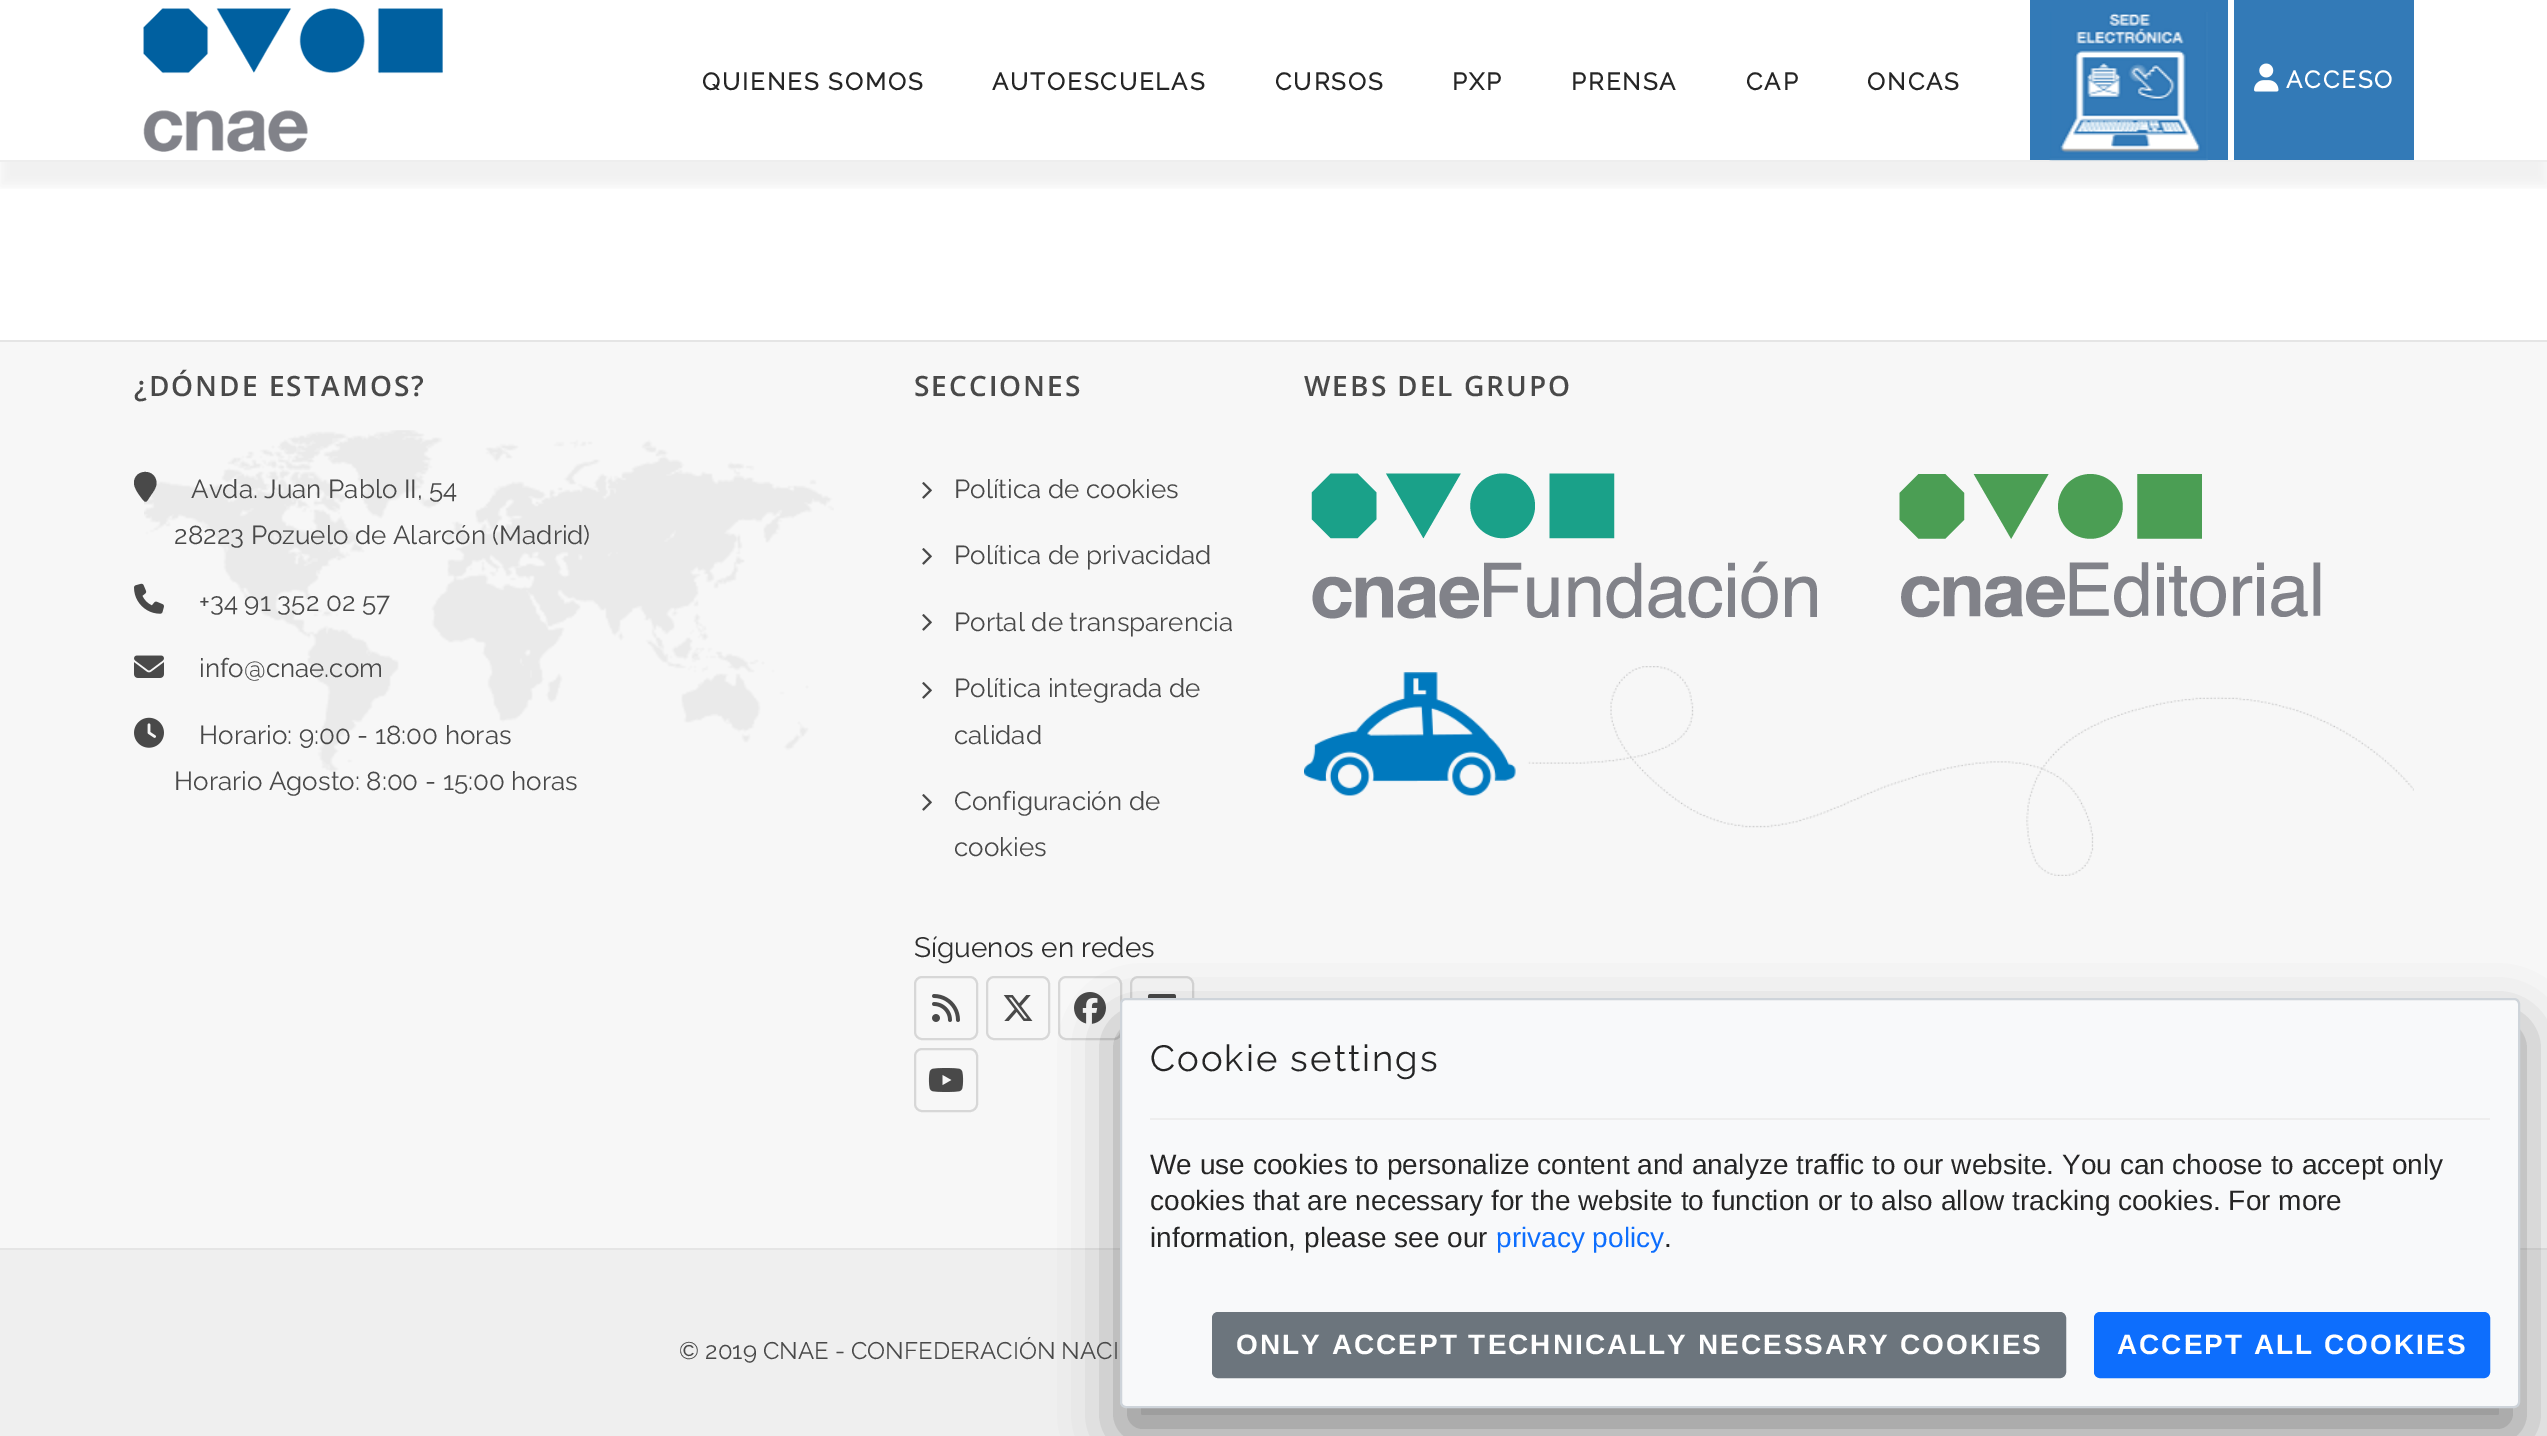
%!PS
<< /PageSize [2547 1436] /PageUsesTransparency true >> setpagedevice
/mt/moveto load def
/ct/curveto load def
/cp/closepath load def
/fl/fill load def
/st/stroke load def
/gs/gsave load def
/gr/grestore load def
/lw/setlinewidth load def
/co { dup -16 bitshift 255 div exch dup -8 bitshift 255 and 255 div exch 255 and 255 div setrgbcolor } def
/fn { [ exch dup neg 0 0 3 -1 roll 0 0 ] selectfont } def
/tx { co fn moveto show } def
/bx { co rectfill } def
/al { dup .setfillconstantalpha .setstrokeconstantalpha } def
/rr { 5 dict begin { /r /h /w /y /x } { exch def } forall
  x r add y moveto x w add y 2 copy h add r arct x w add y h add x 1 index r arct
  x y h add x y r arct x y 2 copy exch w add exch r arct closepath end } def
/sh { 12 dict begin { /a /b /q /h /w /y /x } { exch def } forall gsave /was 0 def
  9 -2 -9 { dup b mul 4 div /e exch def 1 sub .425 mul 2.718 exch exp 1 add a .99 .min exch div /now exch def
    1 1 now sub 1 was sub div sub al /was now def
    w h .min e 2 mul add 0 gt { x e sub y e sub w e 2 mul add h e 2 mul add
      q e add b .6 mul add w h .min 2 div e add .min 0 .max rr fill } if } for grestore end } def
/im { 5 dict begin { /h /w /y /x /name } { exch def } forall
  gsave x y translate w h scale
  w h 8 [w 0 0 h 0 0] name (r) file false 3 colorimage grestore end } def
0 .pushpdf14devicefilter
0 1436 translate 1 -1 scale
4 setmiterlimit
0 0 2547 1436 16#FFFFFF bx
gs
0 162 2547 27 rectclip
16#000000 co
0 24 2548 162 0 6 .06 sh
gr
0 160 2547 2 16#EEEEEE bx
(media/1.raw) 143 8 300 144 im
2030 0 198 160 16#337AB7 bx
(media/2.raw) 2049 12 159 149 im
2234 0 180 160 16#337AB7 bx
(media/3.raw) 2254 63 25 29 im
0 342 2547 906 16#F7F7F7 bx
0 340 2547 2 16#E5E5E5 bx
(media/4.raw) 144 430 690 342 im
16#494949 co
156.5 483 mt 156.5 487.5 153.5 491.5 151 495 ct 145.5 503.5 146 504 140 496 ct 137.5 492.5 134 487.5 134 483 ct 134 468.5 156 468 156.5 483 ct cp fl
(media/5.raw) 134 583 30 31 im
(media/6.raw) 134 655 30 23 im
(media/7.raw) 134 717 30 31 im
(media/8.raw) 922 482 10 17 im
(media/8.raw) 922 548 10 17 im
(media/8.raw) 922 614 10 17 im
(media/8.raw) 922 682 10 17 im
(media/8.raw) 922 794 10 17 im
16#D7D7D7 co
2 lw
915 977 62 62 7 rr st
(media/9.raw) 932 994 28 28 im
987 977 62 62 7 rr st
(media/10.raw) 1003 995 30 26 im
1059 977 62 62 7 rr st
(media/11.raw) 1074 992 32 32 im
1131 977 62 62 7 rr st
(media/12.raw) 1148 994 28 4 im
915 1049 62 62 7 rr st
(media/13.raw) 928 1068 36 24 im
(media/14.raw) 1311 473 506 146 im
(media/15.raw) 1899 474 422 144 im
(media/16.raw) 1304 666 1110 210 im
0 1250 2547 186 16#EFEFEF bx
0 1248 2547 2 16#E5E5E5 bx
16#000000 co
1120 1026 1400 410 6 28 .4 sh
16#F8F9FA co
1121 999 1398 408 5 rr gs fl gr
16#CED4DA co
st
1150 1118 1340 2 16#EEEEEE bx
16#6C757D co
1213 1313 852 64 5 rr gs fl gr
st
16#0D6EFD co
2095 1313 394 64 5 rr gs fl gr
st
/Raleway-Bold 24 fn
16#252525 co
702 90 mt 2 0 (QUIENES SOMOS) ashow
992 90 mt 2 0 (AUTOESCUELAS) ashow
1275 90 mt 2 0 (CURSOS) ashow
1452 90 mt 2 0 (PXP) ashow
1571 90 mt 2 0 (PRENSA) ashow
1746 90 mt 2 0 (CAP) ashow
1867 90 mt 2 0 (ONCAS) ashow
16#FFFFFF co
2286 88 mt 2 0 (ACCESO) ashow
/OpenSans-SemiBold 28 fn
16#494949 co
134 396 mt 2 0 (¿DÓNDE ESTAMOS?) ashow
(Avda. Juan Pablo II, 54) 191 498 /Raleway-Thin 26 16#494949 tx
(28223 Pozuelo de Alarcón \(Madrid\)) 174 544 /Raleway-Thin 26 16#494949 tx
(+34 91 352 02 57) 199 611 /Raleway-Thin 26 16#494949 tx
(info@cnae.com) 199 677 /Raleway-Thin 26 16#494949 tx
(Horario: 9:00 - 18:00 horas) 199 744 /Raleway-Thin 26 16#494949 tx
(Horario Agosto: 8:00 - 15:00 horas) 174 790 /Raleway-Thin 26 16#494949 tx
/OpenSans-SemiBold 28 fn
914 396 mt 2 0 (SECCIONES) ashow
(Política de cookies) 954 498 /Raleway-Thin 26 16#494949 tx
(Política de privacidad) 954 564 /Raleway-Thin 26 16#494949 tx
(Portal de transparencia) 954 631 /Raleway-Thin 26 16#494949 tx
(Política integrada de) 954 697 /Raleway-Thin 26 16#494949 tx
(calidad) 954 744 /Raleway-Thin 26 16#494949 tx
(Configuración de) 954 810 /Raleway-Thin 26 16#494949 tx
(cookies) 954 856 /Raleway-Thin 26 16#494949 tx
(Síguenos en redes) 914 957 /Raleway-Thin 28 16#2F2F2F tx
/OpenSans-SemiBold 28 fn
16#494949 co
1304 396 mt 2 0 (WEBS DEL GRUPO) ashow
(© 2019 CNAE - CONFEDERACIÓN NACI) 679 1359 /Raleway-Thin 24 16#494949 tx
/Raleway-Thin 36.5 fn
16#252525 co
1150 1071 mt 2 0 (Cookie settings) ashow
(We use cookies to personalize content and analyze traffic to our website. You can choose to accept only) 1150 1174 /LiberationSans-Regular 28 16#252525 tx
(cookies that are necessary for the website to function or to also allow tracking cookies. For more) 1150 1210 /LiberationSans-Regular 28 16#252525 tx
(information, please see our) 1150 1247 /LiberationSans-Regular 28 16#252525 tx
(privacy policy) 1496 1247 /LiberationSans-Regular 28 16#0D6EFD tx
(.) 1664 1247 /LiberationSans-Regular 28 16#252525 tx
/LiberationSans-Bold 28 fn
16#FFFFFF co
1236 1354 mt 2 0 (ONLY ACCEPT TECHNICALLY NECESSARY COOKIES) ashow
2117 1354 mt 2 0 (ACCEPT ALL COOKIES) ashow
.poppdf14devicefilter showpage
